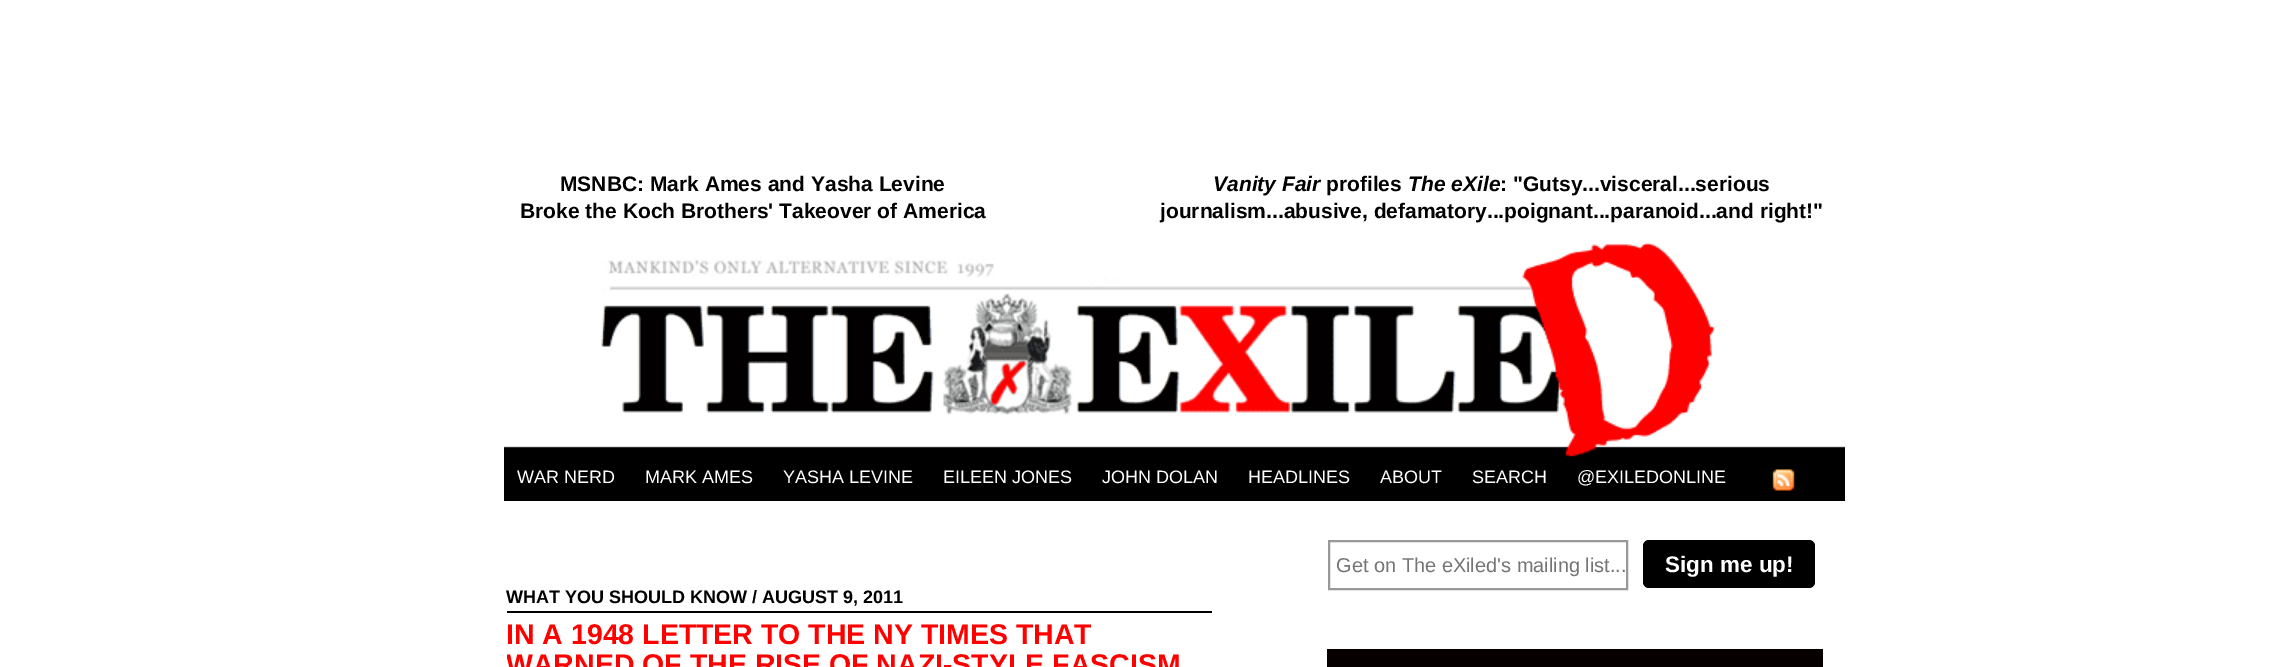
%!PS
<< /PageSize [2293 667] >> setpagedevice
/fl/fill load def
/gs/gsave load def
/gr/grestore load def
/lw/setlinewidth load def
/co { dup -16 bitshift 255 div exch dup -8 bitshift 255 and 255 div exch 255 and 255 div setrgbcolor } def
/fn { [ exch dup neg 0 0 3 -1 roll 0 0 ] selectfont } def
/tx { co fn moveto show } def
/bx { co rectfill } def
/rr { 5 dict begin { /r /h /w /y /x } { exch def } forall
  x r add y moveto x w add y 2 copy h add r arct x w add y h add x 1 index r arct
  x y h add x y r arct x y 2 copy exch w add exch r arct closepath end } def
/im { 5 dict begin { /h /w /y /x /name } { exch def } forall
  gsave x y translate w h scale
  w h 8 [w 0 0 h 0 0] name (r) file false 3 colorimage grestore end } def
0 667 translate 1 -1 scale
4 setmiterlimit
0 0 2293 667 16#FFFFFF bx
(media/1.raw) 504 242 1341 216 im
504 458 1341 43 16#000000 bx
(media/2.raw) 1772 469 23 22 im
16#999999 co
2 lw
1329 541 298 48 rectstroke
16#000000 co
1643 540 172 48 6 rr fl
1327 649 496 18 16#060000 bx
507 611 705 2 16#000000 bx
(MSNBC: Mark Ames and Yasha Levine) 560 191 /LiberationSans-Bold 21 16#000000 tx
(Broke the Koch Brothers' Takeover of America) 520 218 /LiberationSans-Bold 21 16#000000 tx
(Vanity Fair) 1213 191 /LiberationSans-BoldItalic 21 16#000000 tx
(profiles) 1326 191 /LiberationSans-Bold 21 16#000000 tx
(The eXile) 1408 191 /LiberationSans-BoldItalic 21 16#000000 tx
(: "Gutsy...visceral...serious) 1500 191 /LiberationSans-Bold 21 16#000000 tx
(journalism...abusive, defamatory...poignant...paranoid...and right!") 1160 218 /LiberationSans-Bold 21 16#000000 tx
(WAR NERD) 517 483 /LiberationSans-Regular 18 16#FFFFFF tx
(MARK AMES) 645 483 /LiberationSans-Regular 18 16#FFFFFF tx
(YASHA LEVINE) 783 483 /LiberationSans-Regular 18 16#FFFFFF tx
(EILEEN JONES) 943 483 /LiberationSans-Regular 18 16#FFFFFF tx
(JOHN DOLAN) 1102 483 /LiberationSans-Regular 18 16#FFFFFF tx
(HEADLINES) 1248 483 /LiberationSans-Regular 18 16#FFFFFF tx
(ABOUT) 1380 483 /LiberationSans-Regular 18 16#FFFFFF tx
(SEARCH) 1472 483 /LiberationSans-Regular 18 16#FFFFFF tx
(@EXILEDONLINE) 1577 483 /LiberationSans-Regular 18 16#FFFFFF tx
(Get on The eXiled's mailing list...) 1336 572 /LiberationSans-Regular 20 16#757575 tx
(Sign me up!) 1665 572 /LiberationSans-Bold 22.5 16#FFFFFF tx
(WHAT YOU SHOULD KNOW / AUGUST 9, 2011) 506 603 /LiberationSans-Bold 18 16#000000 tx
(IN A 1948 LETTER TO THE NY TIMES THAT) 506 644 /LiberationSans-Bold 28.5 16#FF0000 tx
gs
507 612 705 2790 rectclip
(WARNED OF THE RISE OF NAZI-STYLE FASCISM) 506 674 /LiberationSans-Bold 28.5 16#FF0000 tx
gr
showpage
